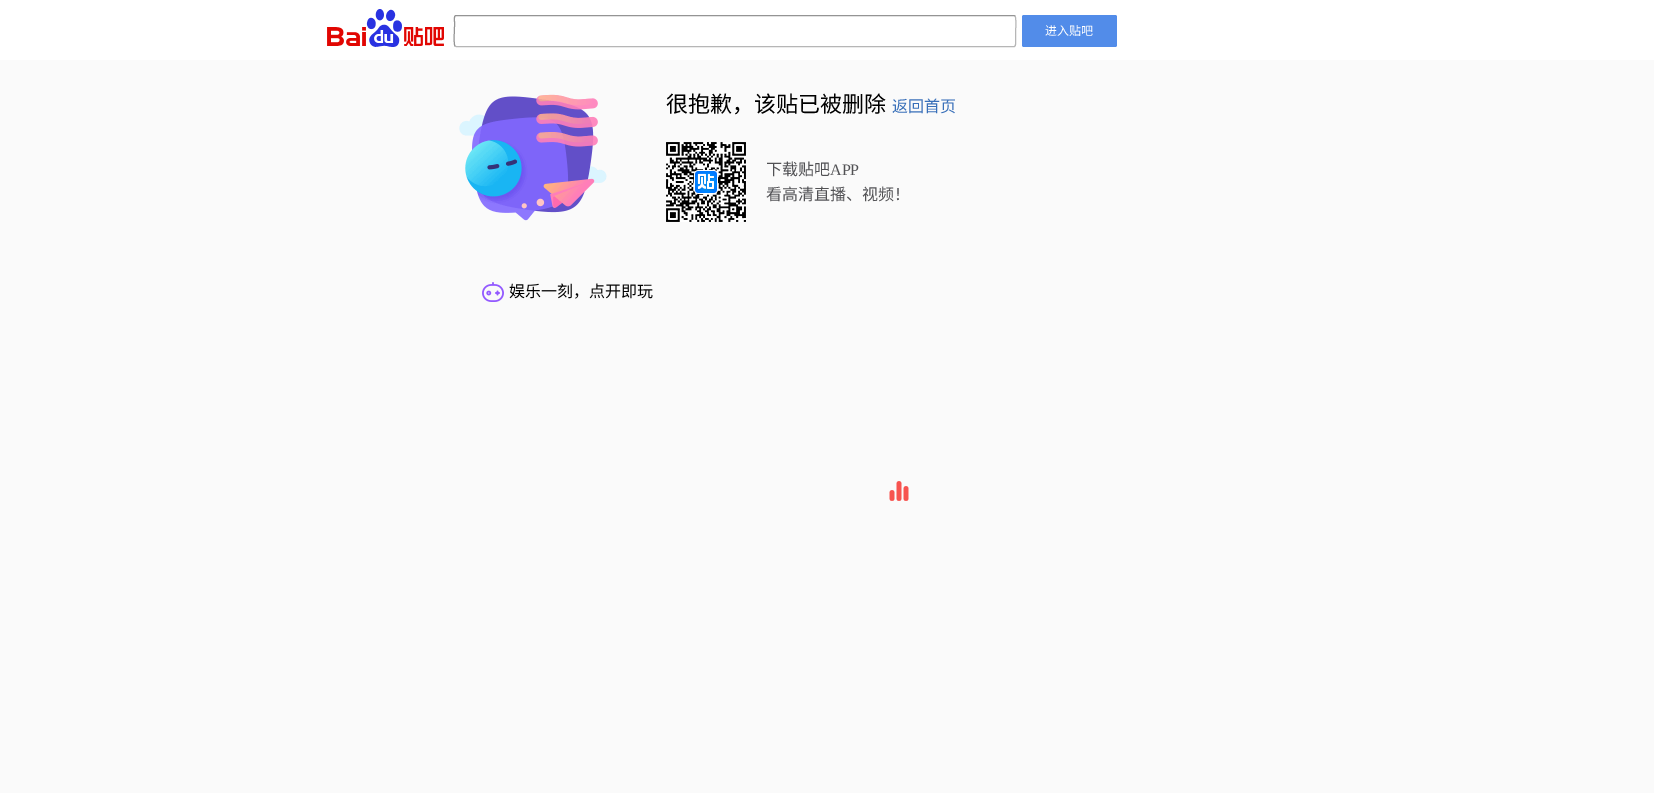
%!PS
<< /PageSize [1654 793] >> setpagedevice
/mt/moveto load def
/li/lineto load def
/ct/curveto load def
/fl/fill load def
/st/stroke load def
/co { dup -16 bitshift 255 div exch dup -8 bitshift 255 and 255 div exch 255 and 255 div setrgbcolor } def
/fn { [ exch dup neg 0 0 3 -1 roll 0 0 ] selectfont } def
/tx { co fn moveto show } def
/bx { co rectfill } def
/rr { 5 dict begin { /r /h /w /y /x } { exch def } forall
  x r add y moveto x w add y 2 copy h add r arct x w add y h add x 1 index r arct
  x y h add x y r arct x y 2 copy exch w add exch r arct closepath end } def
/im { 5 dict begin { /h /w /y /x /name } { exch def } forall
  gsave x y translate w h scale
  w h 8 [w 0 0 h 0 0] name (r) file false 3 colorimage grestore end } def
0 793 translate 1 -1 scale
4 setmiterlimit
0 0 1654 793 16#FAFAFA bx
0 0 1654 60 16#FFFFFF bx
(media/1.raw) 327 9 117 38 im
16#B6B6B6 co
1015 16 mt 1016.5 17 1015.5 33 1015.5 35.5 ct 1015.5 40.5 li 1015.5 40.5 1016.5 46.5 1014 46.5 ct 456 46.5 li 455 46 li st
16#949494 co
455 46 mt 453.5 45 454.5 29 454.5 26.5 ct 454.5 21.5 li 454.5 21.5 453.5 15.5 456 15.5 ct 1014 15.5 li 1015 16 li st
16#528CE9 co
1022 15 95 32 2 rr fl
(media/2.raw) 459 94 148 127 im
(media/3.raw) 666 142 80 80 im
(media/4.raw) 482 282 427 219 im
(进入贴吧) 1045 35 /NotoSansCJKSC-Regular 12 16#FFFFFF tx
(很抱歉，该贴已被删除) 666 112 /NotoSansCJKSC-Regular 22 16#000000 tx
(返回首页) 892 112 /NotoSansCJKSC-Regular 16 16#386FB9 tx
(下载贴吧) 766 175 /NotoSansCJKSC-Regular 16 16#515154 tx
(APP) 830 175 /LiberationSerif-Regular 16 16#515154 tx
(看高清直播、视频！) 766 200 /NotoSansCJKSC-Regular 16 16#515154 tx
showpage
